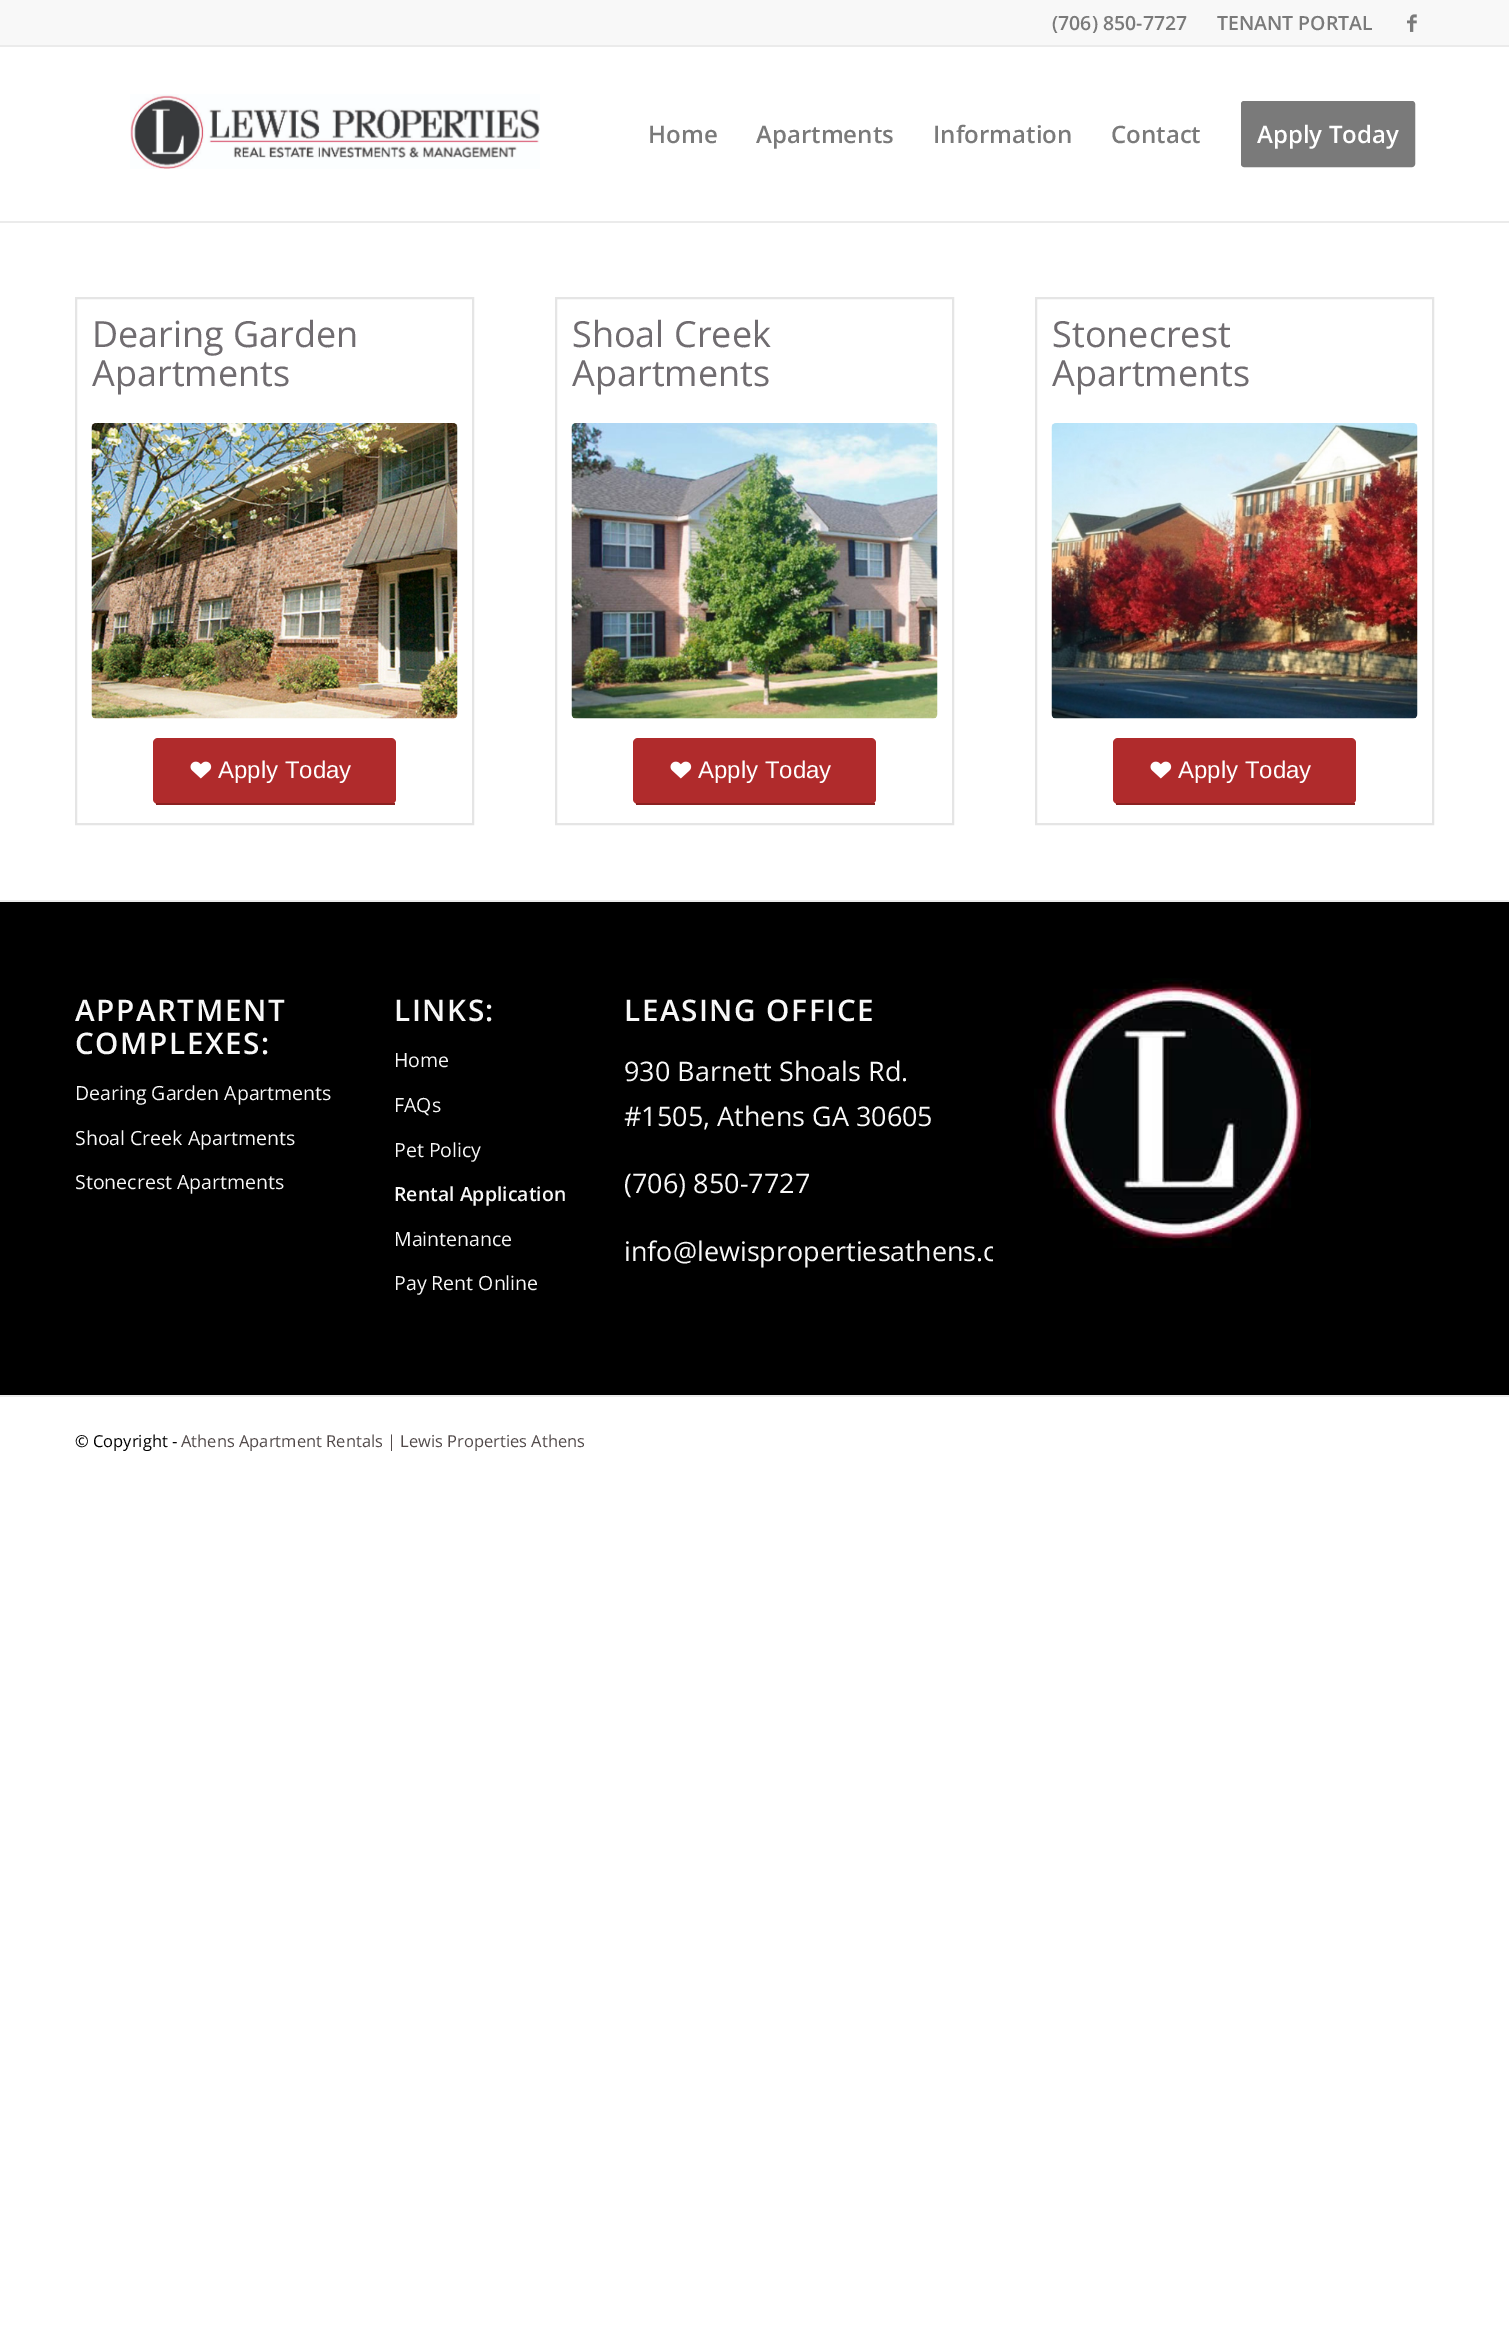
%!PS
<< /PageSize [1509 2333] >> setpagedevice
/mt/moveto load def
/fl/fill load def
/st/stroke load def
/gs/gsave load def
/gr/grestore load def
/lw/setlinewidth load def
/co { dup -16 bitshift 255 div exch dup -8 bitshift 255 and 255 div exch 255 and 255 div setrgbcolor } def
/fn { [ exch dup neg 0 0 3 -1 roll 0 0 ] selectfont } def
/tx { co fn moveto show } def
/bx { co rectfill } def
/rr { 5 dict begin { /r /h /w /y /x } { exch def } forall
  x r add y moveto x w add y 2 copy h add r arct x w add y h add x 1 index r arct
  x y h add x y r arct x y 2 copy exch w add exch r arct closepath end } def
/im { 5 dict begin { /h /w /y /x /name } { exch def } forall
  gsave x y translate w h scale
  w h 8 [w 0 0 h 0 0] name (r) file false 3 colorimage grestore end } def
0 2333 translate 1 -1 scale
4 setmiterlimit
0 0 1509 2333 16#FFFFFF bx
0 0 1509 45 16#F8F8F8 bx
0 45 1509 2 16#EBEBEB bx
(media/1.raw) 1407 14 10 18 im
0 221 1509 2 16#EBEBEB bx
(media/2.raw) 130 94 410 75 im
16#7A7A7A co
1242.5 102.5 171 63 1.5 rr gs fl gr
3 lw
st
16#E5E5E5 co
2 lw
76 298 397 526 rectstroke
(media/3.raw) 91 423 367 296 im
16#B02B2C co
153 738 243 66 5 rr fl
156 803 239 2 16#8B2121 bx
(media/4.raw) 190 761 22 18 im
16#E5E5E5 co
556 298 397 526 rectstroke
(media/5.raw) 571 423 367 296 im
16#B02B2C co
633 738 243 66 5 rr fl
636 803 239 2 16#8B2121 bx
(media/4.raw) 670 761 22 18 im
16#E5E5E5 co
1036 298 397 526 rectstroke
(media/6.raw) 1051 423 367 296 im
16#B02B2C co
1113 738 243 66 5 rr fl
1116 803 239 2 16#8B2121 bx
(media/4.raw) 1150 761 22 18 im
0 902 1509 493 16#000000 bx
0 900 1509 2 16#EBEBEB bx
(media/7.raw) 1034 978 277 270 im
0 1395 1509 2 16#EBEBEB bx
(\(706\) 850-7727) 1052 30 /OpenSans-SemiBold 19.5 16#7A7A7A tx
(TENANT PORTAL) 1217 30 /OpenSans-SemiBold 19.5 16#7A7A7A tx
(Home) 648 143 /OpenSans-SemiBold 24 16#7A7A7A tx
(Apartments) 756 143 /OpenSans-SemiBold 24 16#7A7A7A tx
(Information) 933 143 /OpenSans-SemiBold 24 16#7A7A7A tx
(Contact) 1111 143 /OpenSans-SemiBold 24 16#7A7A7A tx
(Apply Today) 1257 143 /OpenSans-SemiBold 24 16#FFFFFF tx
(Dearing Garden) 92 347 /OpenSans-Regular 36 16#706C70 tx
(Apartments) 92 386 /OpenSans-Regular 36 16#706C70 tx
(Apply Today) 218 778 /LiberationSans-Regular 24 16#FFFFFF tx
(Shoal Creek) 572 347 /OpenSans-Regular 36 16#706C70 tx
(Apartments) 572 386 /OpenSans-Regular 36 16#706C70 tx
(Apply Today) 698 778 /LiberationSans-Regular 24 16#FFFFFF tx
(Stonecrest) 1052 347 /OpenSans-Regular 36 16#706C70 tx
(Apartments) 1052 386 /OpenSans-Regular 36 16#706C70 tx
(Apply Today) 1178 778 /LiberationSans-Regular 24 16#FFFFFF tx
/OpenSans-SemiBold 29.75 fn
16#F8F8F8 co
75 1021 mt 1.5 0 (APPARTMENT) ashow
75 1054 mt 1.5 0 (COMPLEXES:) ashow
(Dearing Garden Apartments) 75 1100 /OpenSans-Regular 19.5 16#F8F8F8 tx
(Shoal Creek Apartments) 75 1145 /OpenSans-Regular 19.5 16#F8F8F8 tx
(Stonecrest Apartments) 75 1189 /OpenSans-Regular 19.5 16#F8F8F8 tx
/OpenSans-SemiBold 29.75 fn
394 1021 mt 1.5 0 (LINKS:) ashow
(Home) 394 1067 /OpenSans-Regular 19.5 16#F8F8F8 tx
(FAQs) 394 1112 /OpenSans-Regular 19.5 16#F8F8F8 tx
(Pet Policy) 394 1157 /OpenSans-Regular 19.5 16#F8F8F8 tx
(Rental Application) 394 1201 /OpenSans-SemiBold 19.5 16#F8F8F8 tx
(Maintenance) 394 1246 /OpenSans-Regular 19.5 16#F8F8F8 tx
(Pay Rent Online) 394 1290 /OpenSans-Regular 19.5 16#F8F8F8 tx
/OpenSans-SemiBold 29.75 fn
624 1021 mt 1.5 0 (LEASING OFFICE) ashow
(930 Barnett Shoals Rd.) 624 1081 /OpenSans-Regular 27 16#F8F8F8 tx
(#1505, Athens GA 30605) 624 1126 /OpenSans-Regular 27 16#F8F8F8 tx
(\(706\) 850-7727) 624 1193 /OpenSans-Regular 27 16#F8F8F8 tx
gs
624 969 369 329 rectclip
(info@lewispropertiesathens.c) 624 1261 /OpenSans-Regular 27 16#F8F8F8 tx
gr
(© Copyright -) 75 1447 /OpenSans-Regular 16.5 16#000000 tx
(Athens Apartment Rentals | Lewis Properties Athens) 181 1447 /OpenSans-Regular 16.5 16#524A4A tx
showpage
